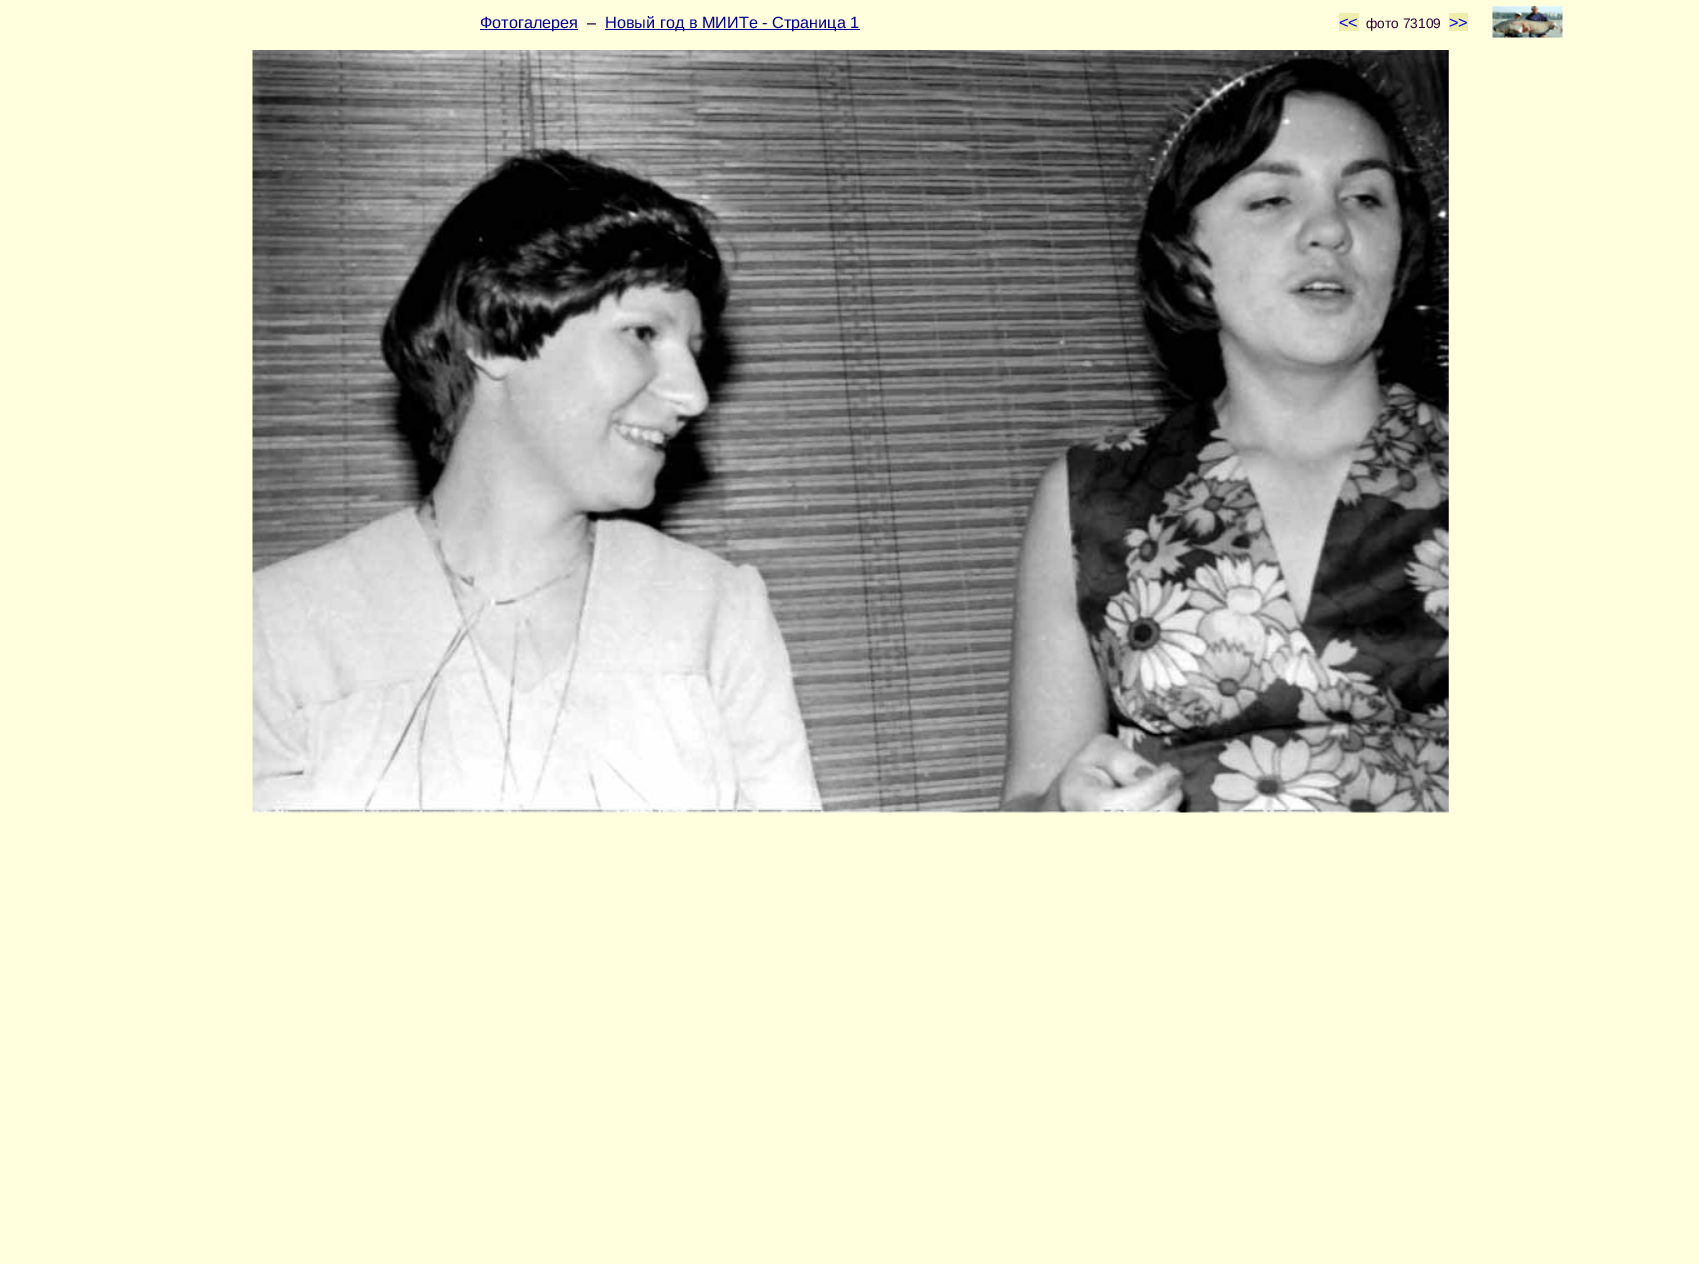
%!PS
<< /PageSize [1699 1264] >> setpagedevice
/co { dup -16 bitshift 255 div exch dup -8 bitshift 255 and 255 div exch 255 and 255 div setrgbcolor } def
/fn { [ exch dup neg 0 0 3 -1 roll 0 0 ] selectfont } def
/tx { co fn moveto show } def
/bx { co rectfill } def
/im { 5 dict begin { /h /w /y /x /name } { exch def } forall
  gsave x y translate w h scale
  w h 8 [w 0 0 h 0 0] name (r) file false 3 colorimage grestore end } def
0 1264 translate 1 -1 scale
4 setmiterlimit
0 0 1699 1264 16#FFFFDD bx
480 29 98 1 16#000099 bx
605 29 255 1 16#000099 bx
1339 13 20 18 16#EEEEAA bx
1449 13 19 18 16#EEEEAA bx
(media/1.raw) 1492 6 71 32 im
(media/2.raw) 252 50 1197 763 im
(Фотогалерея) 480 28 /LiberationSans-Regular 16.25 16#000099 tx
(–) 587 28 /LiberationSans-Regular 16.25 16#330033 tx
(Новый год в МИИТе - Страница 1) 605 28 /LiberationSans-Regular 16.25 16#000099 tx
(<<) 1339 28 /LiberationSans-Regular 16.25 16#0000FF tx
(фото 73109) 1366 28 /LiberationSans-Regular 13.75 16#330033 tx
(>>) 1449 28 /LiberationSans-Regular 16.25 16#0000FF tx
showpage
